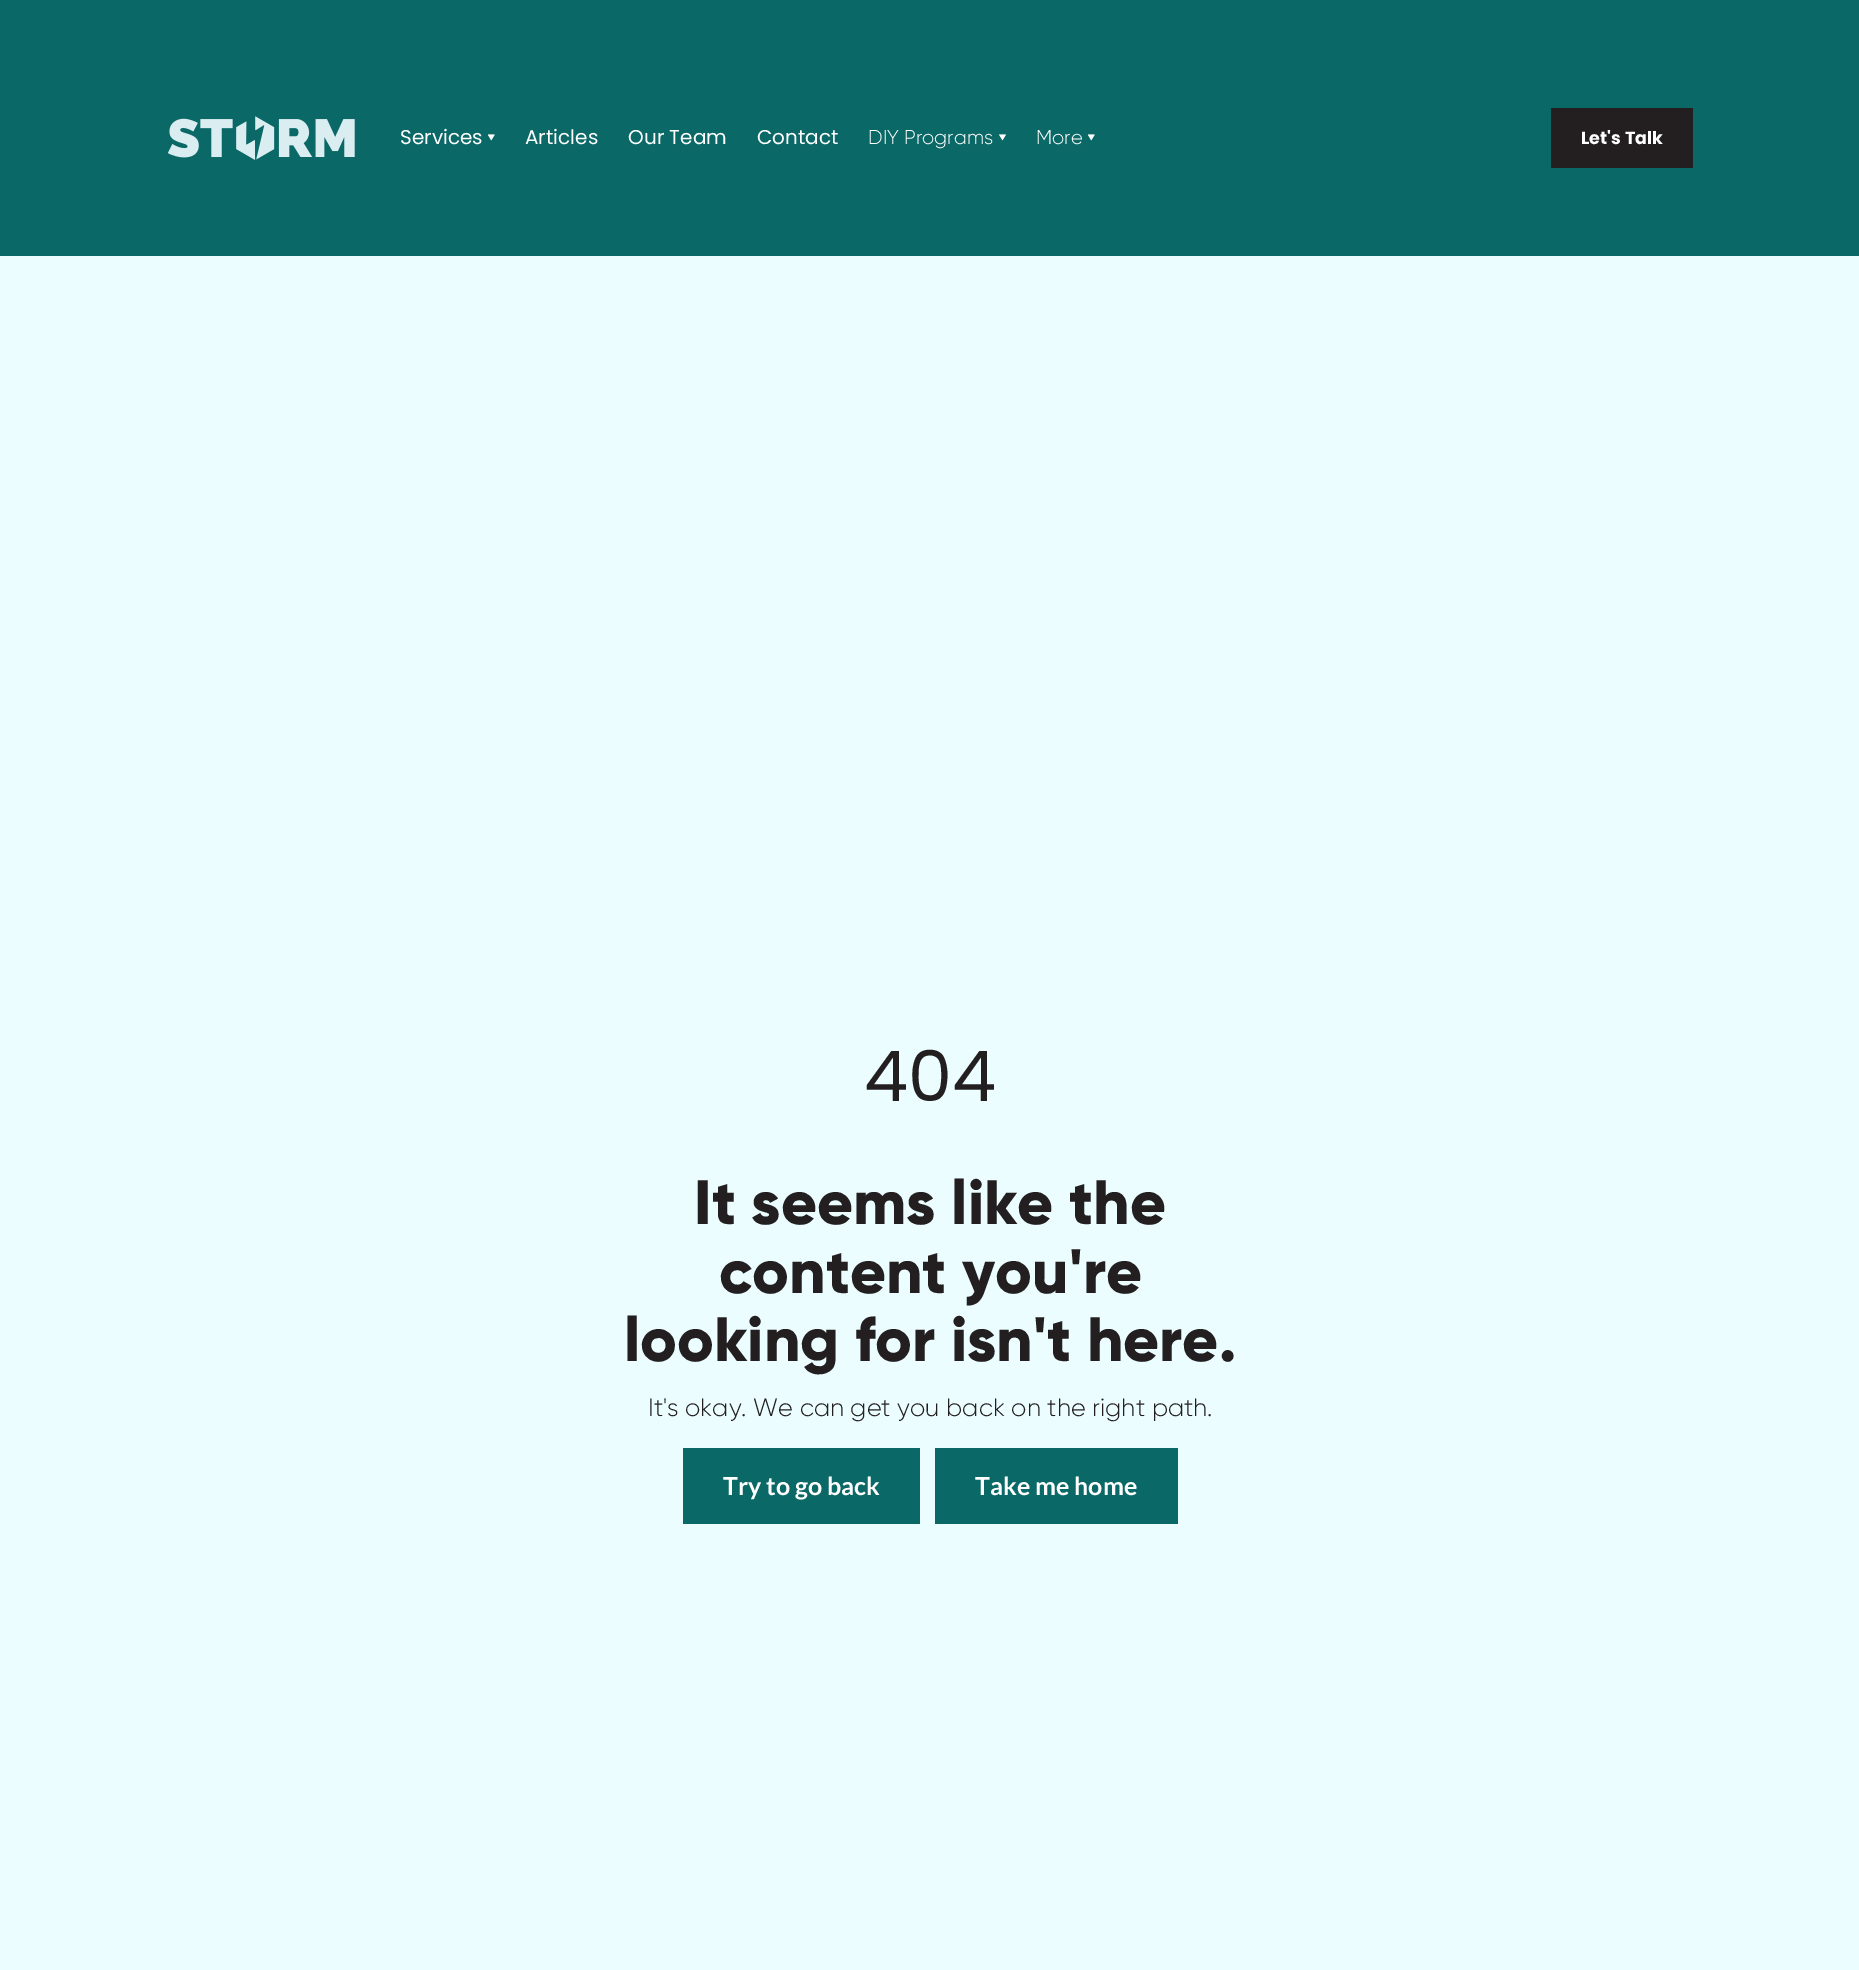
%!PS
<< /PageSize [1859 1970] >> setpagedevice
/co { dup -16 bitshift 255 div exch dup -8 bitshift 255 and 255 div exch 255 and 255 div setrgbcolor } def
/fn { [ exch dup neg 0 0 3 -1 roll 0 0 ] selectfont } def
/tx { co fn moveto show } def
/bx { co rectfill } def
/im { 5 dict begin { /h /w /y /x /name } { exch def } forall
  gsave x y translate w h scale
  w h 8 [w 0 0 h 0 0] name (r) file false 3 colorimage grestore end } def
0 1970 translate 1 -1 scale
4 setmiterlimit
0 0 1859 1970 16#EBFDFF bx
0 0 1859 256 16#0A6867 bx
(media/1.raw) 168 116 187 44 im
(media/2.raw) 488 134 7 7 im
(media/3.raw) 999 134 7 7 im
(media/2.raw) 1088 134 7 7 im
1551 108 142 60 16#231F20 bx
683 1448 237 76 16#0A6867 bx
935 1448 243 76 16#0A6867 bx
(Services) 400 144 /Poppins-Regular 20 16#FFFFFF tx
(Articles) 525 144 /Poppins-Regular 20 16#FFFFFF tx
(Our Team) 628 144 /Poppins-Regular 20 16#FFFFFF tx
(Contact) 757 144 /Poppins-Regular 20 16#FFFFFF tx
(DIY Programs) 868 144 /Gilroy-Light 20 16#FFFFFF tx
(More) 1036 144 /Gilroy-Light 20 16#FFFFFF tx
(Let's Talk) 1581 144 /Poppins-Bold 17.5 16#FFFFFF tx
(404) 864 1101 /Poppins-Regular 70 16#231F20 tx
(It seems like the) 694 1224 /Gilroy-ExtraBold 62.5 16#231F20 tx
(content you're) 719 1293 /Gilroy-ExtraBold 62.5 16#231F20 tx
(looking for isn't here.) 624 1361 /Gilroy-ExtraBold 62.5 16#231F20 tx
(It's okay. We can get you back on the right path.) 648 1416 /Gilroy-Light 25 16#231F20 tx
(Try to go back) 723 1495 /Lato-Bold 25 16#FFFFFF tx
(Take me home) 975 1495 /Lato-Bold 25 16#FFFFFF tx
showpage
